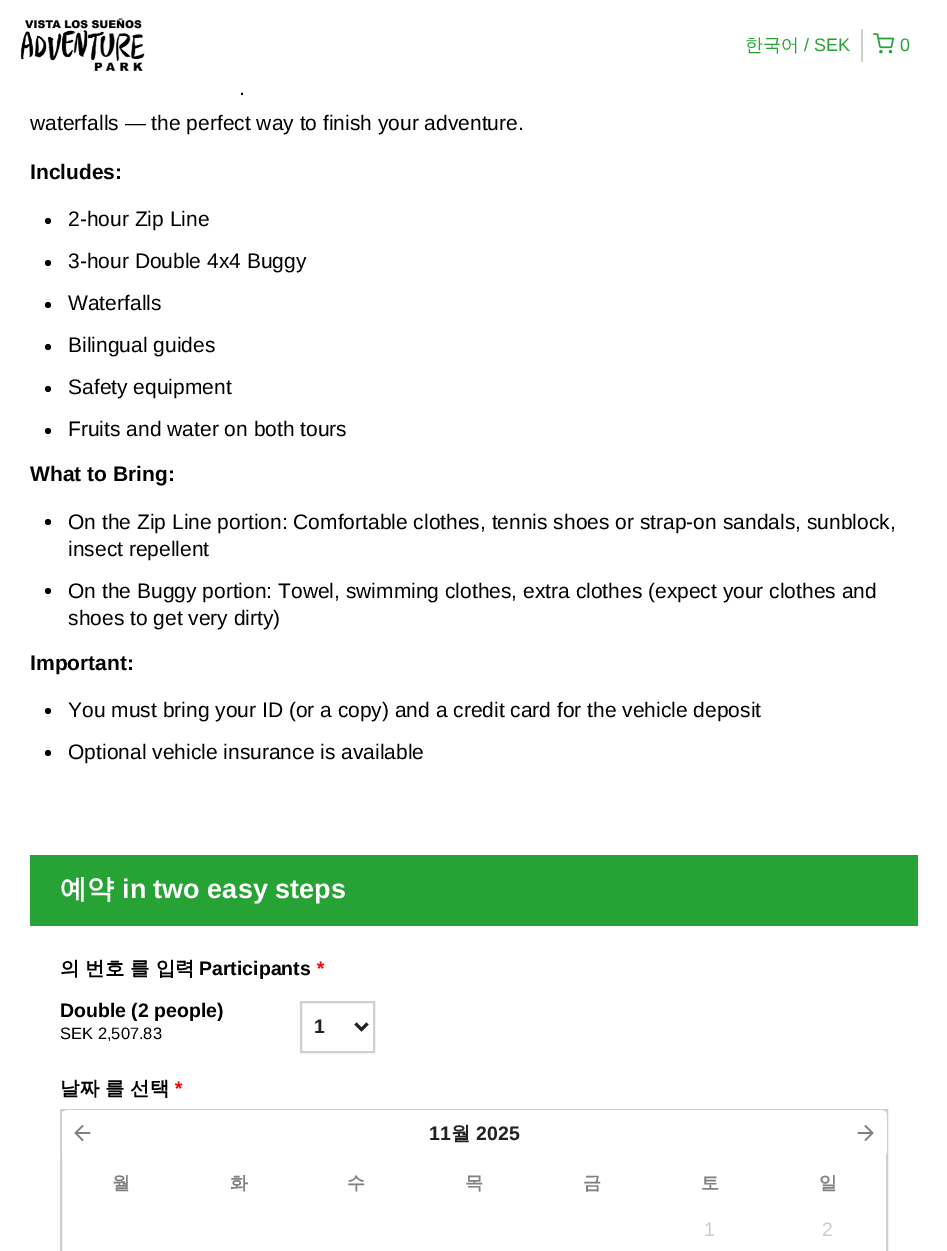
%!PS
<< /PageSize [947 1251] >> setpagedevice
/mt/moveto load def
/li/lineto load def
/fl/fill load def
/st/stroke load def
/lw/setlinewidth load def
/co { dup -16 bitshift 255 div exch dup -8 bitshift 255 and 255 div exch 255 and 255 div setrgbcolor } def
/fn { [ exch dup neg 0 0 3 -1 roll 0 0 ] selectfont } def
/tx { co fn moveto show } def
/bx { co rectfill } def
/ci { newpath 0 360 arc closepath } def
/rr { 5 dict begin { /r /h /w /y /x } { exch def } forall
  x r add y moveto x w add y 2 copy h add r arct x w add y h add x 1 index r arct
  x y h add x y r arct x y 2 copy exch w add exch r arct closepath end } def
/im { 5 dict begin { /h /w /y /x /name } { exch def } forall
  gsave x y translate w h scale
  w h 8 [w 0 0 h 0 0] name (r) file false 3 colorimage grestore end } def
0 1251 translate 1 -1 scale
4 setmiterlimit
0 0 947 1251 16#FFFFFF bx
(media/1.raw) 20 18 125 53 im
861 29 2 33 16#CCD1CA bx
(media/2.raw) 873 33 21 21 im
16#000000 co
48 221 3 ci fl
48 263 3 ci fl
48 305 3 ci fl
48 347 3 ci fl
48 389 3 ci fl
48 431 3 ci fl
48 522 3 ci fl
48 591 3 ci fl
48 711 3 ci fl
48 753 3 ci fl
30 855 888 71 16#27A335 bx
16#CCD1CA co
2 lw
301 1002 73 50 rectstroke
16#222222 co
3 lw
355.5 1023.5 mt 361.5 1029.5 li 367.5 1023.5 li st
16#CCD1CA co
2 lw
61 1110 826 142 rectstroke
16#FFFFFF co
62 1110 825 47 6 rr fl
(media/3.raw) 74 1125 17 16 im
(media/4.raw) 857 1125 17 16 im
(한국어) 745 51 /WenQuanYiZenHei-Medium 18 16#27A335 tx
(/) 804 51 /LiberationSans-Regular 18 16#27A335 tx
(SEK) 814 51 /LiberationSans-Regular 18 16#27A335 tx
(0) 900 51 /LiberationSans-Regular 18 16#27A335 tx
(.) 239 95 /LiberationSans-Regular 21 16#000000 tx
(waterfalls — the perfect way to finish your adventure.) 30 130 /LiberationSans-Regular 21 16#000000 tx
(Includes:) 30 179 /LiberationSans-Bold 21 16#000000 tx
(2-hour Zip Line) 68 226 /LiberationSans-Regular 21 16#000000 tx
(3-hour Double 4x4 Buggy) 68 268 /LiberationSans-Regular 21 16#000000 tx
(Waterfalls) 68 310 /LiberationSans-Regular 21 16#000000 tx
(Bilingual guides) 68 352 /LiberationSans-Regular 21 16#000000 tx
(Safety equipment) 68 394 /LiberationSans-Regular 21 16#000000 tx
(Fruits and water on both tours) 68 436 /LiberationSans-Regular 21 16#000000 tx
(What to Bring:) 30 481 /LiberationSans-Bold 21 16#000000 tx
(On the Zip Line portion: Comfortable clothes, tennis shoes or strap-on sandals, sunblock,) 68 529 /LiberationSans-Regular 21 16#000000 tx
(insect repellent) 68 556 /LiberationSans-Regular 21 16#000000 tx
(On the Buggy portion: Towel, swimming clothes, extra clothes \(expect your clothes and) 68 598 /LiberationSans-Regular 21 16#000000 tx
(shoes to get very dirty\)) 68 625 /LiberationSans-Regular 21 16#000000 tx
(Important:) 30 670 /LiberationSans-Bold 21 16#000000 tx
(You must bring your ID \(or a copy\) and a credit card for the vehicle deposit) 68 717 /LiberationSans-Regular 21 16#000000 tx
(Optional vehicle insurance is available) 68 759 /LiberationSans-Regular 21 16#000000 tx
(예약) 60 898 /WenQuanYiZenHei-Bold 27 16#FFFFFF tx
(in two easy steps) 122 898 /LiberationSans-Bold 27 16#FFFFFF tx
(의 번호 를 입력) 60 975 /WenQuanYiZenHei-Bold 19.5 16#000000 tx
(Participants) 199 975 /LiberationSans-Bold 19.5 16#000000 tx
(*) 316 975 /LiberationSans-BoldItalic 19.5 16#FF0000 tx
(Double \(2 people\)) 60 1017 /LiberationSans-Bold 19.5 16#000000 tx
(SEK 2,507.83) 60 1039 /LiberationSans-Regular 16.5 16#000000 tx
(1) 314 1033 /LiberationSans-Bold 19.5 16#222222 tx
(날짜 를 선택) 60 1095 /WenQuanYiZenHei-Bold 19.5 16#000000 tx
(*) 174 1095 /LiberationSans-BoldItalic 19.5 16#FF0000 tx
(11) 429 1140 /LiberationSans-Bold 19.5 16#222222 tx
(월) 451 1140 /WenQuanYiZenHei-Bold 19.5 16#222222 tx
(2025) 476 1140 /LiberationSans-Bold 19.5 16#222222 tx
(월) 112 1189 /WenQuanYiZenHei-Bold 18 16#808080 tx
(화) 230 1189 /WenQuanYiZenHei-Bold 18 16#808080 tx
(수) 347 1189 /WenQuanYiZenHei-Bold 18 16#808080 tx
(목) 465 1189 /WenQuanYiZenHei-Bold 18 16#808080 tx
(금) 583 1189 /WenQuanYiZenHei-Bold 18 16#808080 tx
(토) 701 1189 /WenQuanYiZenHei-Bold 18 16#808080 tx
(일) 819 1189 /WenQuanYiZenHei-Bold 18 16#808080 tx
(1) 704 1236 /LiberationSans-Regular 19.5 16#CCCCCC tx
(2) 822 1236 /LiberationSans-Regular 19.5 16#CCCCCC tx
showpage
